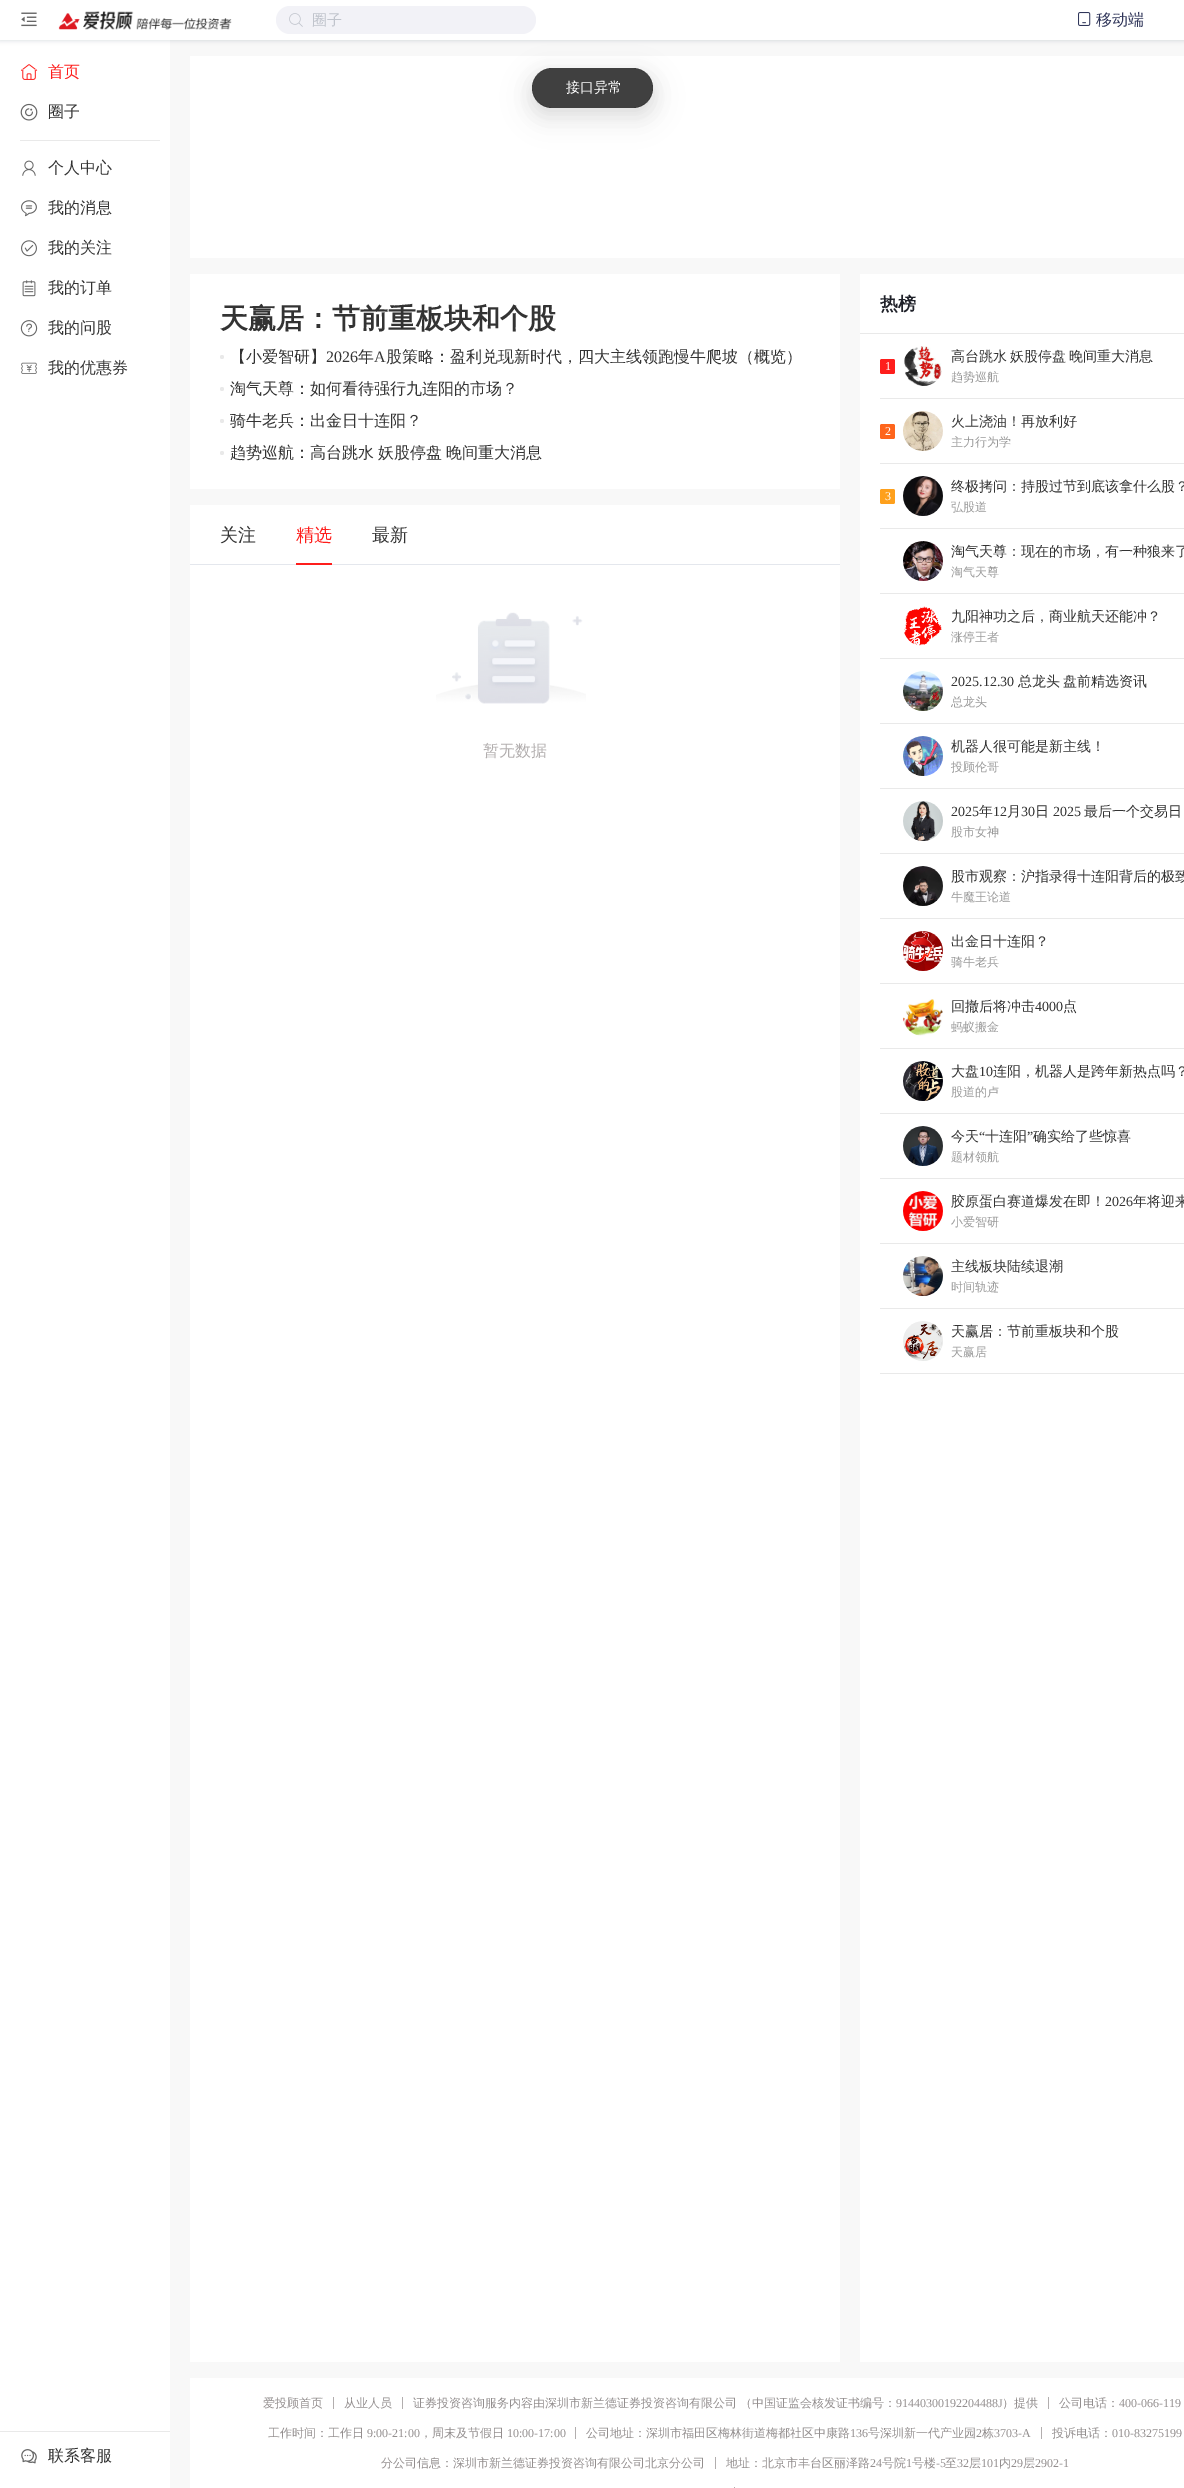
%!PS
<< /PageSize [1184 2488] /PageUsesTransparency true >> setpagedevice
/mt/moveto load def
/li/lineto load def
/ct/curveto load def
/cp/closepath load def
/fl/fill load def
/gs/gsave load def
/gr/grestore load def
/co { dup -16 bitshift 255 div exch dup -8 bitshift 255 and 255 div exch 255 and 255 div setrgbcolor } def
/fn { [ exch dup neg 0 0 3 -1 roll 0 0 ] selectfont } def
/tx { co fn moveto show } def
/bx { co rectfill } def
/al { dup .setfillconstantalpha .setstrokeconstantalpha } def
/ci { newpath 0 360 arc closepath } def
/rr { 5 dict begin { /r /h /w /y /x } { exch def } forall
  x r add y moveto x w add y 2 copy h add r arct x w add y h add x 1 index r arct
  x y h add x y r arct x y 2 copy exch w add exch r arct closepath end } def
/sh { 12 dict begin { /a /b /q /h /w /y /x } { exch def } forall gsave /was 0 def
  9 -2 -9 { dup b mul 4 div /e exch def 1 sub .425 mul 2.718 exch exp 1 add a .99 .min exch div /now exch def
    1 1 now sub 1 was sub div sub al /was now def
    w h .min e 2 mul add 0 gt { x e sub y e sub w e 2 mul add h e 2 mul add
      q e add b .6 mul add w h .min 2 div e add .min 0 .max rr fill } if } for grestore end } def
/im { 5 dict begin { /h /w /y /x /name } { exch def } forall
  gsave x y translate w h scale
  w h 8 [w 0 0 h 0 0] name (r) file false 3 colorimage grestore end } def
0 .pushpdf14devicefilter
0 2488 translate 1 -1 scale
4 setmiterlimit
0 0 1184 2488 16#FFFFFF bx
170 40 1014 2448 16#F8F8F8 bx
16#001529 co
0 1 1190 40 0 2 .12 sh
0 0 1184 40 16#FFFFFF bx
(media/1.raw) 21 12 16 15 im
(media/2.raw) 58 11 174 19 im
16#F2F2F7 co
276 6 260 28 14 rr fl
(media/3.raw) 289 13 14 14 im
(media/4.raw) 1078 12 13 14 im
(media/5.raw) 21 64 17 16 im
(media/6.raw) 20 103 18 18 im
20 140 140 1 16#E9E9E9 bx
(media/7.raw) 22 160 14 16 im
(media/8.raw) 21 200 16 17 im
(media/9.raw) 21 240 16 17 im
(media/10.raw) 22 280 14 17 im
(media/11.raw) 20 320 18 17 im
(media/12.raw) 21 362 16 12 im
0 2431 170 1 16#E9E9E9 bx
(media/13.raw) 21 2449 16 15 im
190 56 994 2306 16#FFFFFF bx
190 258 994 16 16#F8F8F8 bx
16#E9E9E9 co
222 357 2 ci fl
222 389 2 ci fl
222 421 2 ci fl
222 453 2 ci fl
190 489 650 16 16#F8F8F8 bx
190 564 650 1 16#E4E7ED bx
296 563 36 2 16#FE1E1C bx
(media/14.raw) 436 612 150 92 im
840 274 20 2088 16#F8F8F8 bx
860 333 324 1 16#E9E9E9 bx
880 398 304 1 16#E9E9E9 bx
16#FE1E1C co
880 359 15 15 2 rr fl
(media/15.raw) 904 346 38 40 im
880 463 304 1 16#E9E9E9 bx
16#FE651C co
880 424 15 15 2 rr fl
(media/16.raw) 903 411 40 40 im
880 528 304 1 16#E9E9E9 bx
16#FEA01C co
880 489 15 15 2 rr fl
(media/17.raw) 903 476 40 40 im
880 593 304 1 16#E9E9E9 bx
(media/18.raw) 903 541 40 40 im
880 658 304 1 16#E9E9E9 bx
(media/19.raw) 904 606 38 40 im
880 723 304 1 16#E9E9E9 bx
(media/20.raw) 903 671 40 40 im
880 788 304 1 16#E9E9E9 bx
(media/21.raw) 903 736 40 40 im
880 853 304 1 16#E9E9E9 bx
(media/22.raw) 903 801 40 40 im
880 918 304 1 16#E9E9E9 bx
(media/23.raw) 903 866 40 40 im
880 983 304 1 16#E9E9E9 bx
(media/24.raw) 903 931 40 40 im
880 1048 304 1 16#E9E9E9 bx
(media/25.raw) 903 999 40 37 im
880 1113 304 1 16#E9E9E9 bx
(media/26.raw) 903 1061 40 40 im
880 1178 304 1 16#E9E9E9 bx
(media/27.raw) 903 1126 40 40 im
880 1243 304 1 16#E9E9E9 bx
(media/28.raw) 903 1191 40 40 im
880 1308 304 1 16#E9E9E9 bx
(media/29.raw) 903 1256 40 40 im
880 1373 304 1 16#E9E9E9 bx
(media/30.raw) 903 1321 40 40 im
190 2378 994 110 16#FFFFFF bx
333 2397 1 12 16#B2AEAE bx
402 2397 1 12 16#B2AEAE bx
1048 2397 1 12 16#B2AEAE bx
575 2427 1 12 16#B2AEAE bx
1041 2427 1 12 16#B2AEAE bx
715 2457 1 12 16#B2AEAE bx
734 2487 1 1 16#B2AEAE bx
gs
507 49 mt 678 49 li 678 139 li 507 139 li cp 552 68 mt 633 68 li 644 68 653 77 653 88 ct 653 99 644 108 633 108 ct 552 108 li 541 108 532 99 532 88 ct 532 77 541 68 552 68 ct cp eoclip newpath
16#000000 co
532 74 121 40 20 8 .08 sh
gr
gs
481 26 mt 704 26 li 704 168 li 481 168 li cp 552 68 mt 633 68 li 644 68 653 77 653 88 ct 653 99 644 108 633 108 ct 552 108 li 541 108 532 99 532 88 ct 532 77 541 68 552 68 ct cp eoclip newpath
16#000000 co
524 69 137 56 28 14 .05 sh
gr
0.75 al
16#000000 co
532 68 121 40 20 rr fl
1 al
(圈子) 312 25 /WenQuanYiZenHei-Medium 15 16#C0C4CC tx
(移动端) 1096 25 /WenQuanYiZenHei-Medium 16 16#30365A tx
(首页) 48 77 /WenQuanYiZenHei-Medium 16 16#FE1E1C tx
(圈子) 48 117 /WenQuanYiZenHei-Medium 16 16#333333 tx
(个人中心) 48 173 /WenQuanYiZenHei-Medium 16 16#333333 tx
(我的消息) 48 213 /WenQuanYiZenHei-Medium 16 16#333333 tx
(我的关注) 48 253 /WenQuanYiZenHei-Medium 16 16#333333 tx
(我的订单) 48 293 /WenQuanYiZenHei-Medium 16 16#333333 tx
(我的问股) 48 333 /WenQuanYiZenHei-Medium 16 16#333333 tx
(我的优惠券) 48 373 /WenQuanYiZenHei-Medium 16 16#333333 tx
(联系客服) 48 2461 /WenQuanYiZenHei-Medium 16 16#333333 tx
(天赢居：节前重板块和个股) 220 328 /WenQuanYiZenHei-Bold 28 16#333333 tx
(【小爱智研】) 230 362 /WenQuanYiZenHei-Medium 16 16#333333 tx
(2026) 326 362 /LiberationSerif-Regular 16 16#333333 tx
(年) 358 362 /WenQuanYiZenHei-Medium 16 16#333333 tx
(A) 374 362 /LiberationSerif-Regular 16 16#333333 tx
(股策略：盈利兑现新时代，四大主线领跑慢牛爬坡（概览）) 386 362 /WenQuanYiZenHei-Medium 16 16#333333 tx
(淘气天尊：如何看待强行九连阳的市场？) 230 394 /WenQuanYiZenHei-Medium 16 16#333333 tx
(骑牛老兵：出金日十连阳？) 230 426 /WenQuanYiZenHei-Medium 16 16#333333 tx
230 458 mt -1 0 32 (趋势巡航：高台跳水 妖股停盘 晚间重大消息) widthshow
(关注) 220 541 /WenQuanYiZenHei-Medium 18 16#333333 tx
(精选) 296 541 /WenQuanYiZenHei-Medium 18 16#FE1E1C tx
(最新) 372 541 /WenQuanYiZenHei-Medium 18 16#333333 tx
(暂无数据) 483 756 /WenQuanYiZenHei-Medium 16 16#B2AEAE tx
(热榜) 880 310 /WenQuanYiZenHei-Bold 18 16#1F2129 tx
(1) 885 370 /LiberationSerif-Regular 12 16#FFFFFF tx
/WenQuanYiZenHei-Medium 14 fn
16#333333 co
951 361 mt -1 0 32 (高台跳水 妖股停盘 晚间重大消息) widthshow
(趋势巡航) 951 381 /WenQuanYiZenHei-Medium 12 16#999999 tx
(2) 885 435 /LiberationSerif-Regular 12 16#FFFFFF tx
(火上浇油！再放利好) 951 426 /WenQuanYiZenHei-Medium 14 16#333333 tx
(主力行为学) 951 446 /WenQuanYiZenHei-Medium 12 16#999999 tx
(3) 885 500 /LiberationSerif-Regular 12 16#FFFFFF tx
(终极拷问：持股过节到底该拿什么股？) 951 491 /WenQuanYiZenHei-Medium 14 16#333333 tx
(弘股道) 951 511 /WenQuanYiZenHei-Medium 12 16#999999 tx
(淘气天尊：现在的市场，有一种狼来了) 951 556 /WenQuanYiZenHei-Medium 14 16#333333 tx
(淘气天尊) 951 576 /WenQuanYiZenHei-Medium 12 16#999999 tx
(九阳神功之后，商业航天还能冲？) 951 621 /WenQuanYiZenHei-Medium 14 16#333333 tx
(涨停王者) 951 641 /WenQuanYiZenHei-Medium 12 16#999999 tx
(2025.12.30) 951 686 /LiberationSerif-Regular 14 16#333333 tx
(总龙头) 1018 686 /WenQuanYiZenHei-Medium 14 16#333333 tx
(盘前精选资讯) 1063 686 /WenQuanYiZenHei-Medium 14 16#333333 tx
(总龙头) 951 706 /WenQuanYiZenHei-Medium 12 16#999999 tx
(机器人很可能是新主线！) 951 751 /WenQuanYiZenHei-Medium 14 16#333333 tx
(投顾伦哥) 951 771 /WenQuanYiZenHei-Medium 12 16#999999 tx
(2025) 951 816 /LiberationSerif-Regular 14 16#333333 tx
(年) 979 816 /WenQuanYiZenHei-Medium 14 16#333333 tx
(12) 993 816 /LiberationSerif-Regular 14 16#333333 tx
(月) 1007 816 /WenQuanYiZenHei-Medium 14 16#333333 tx
(30) 1021 816 /LiberationSerif-Regular 14 16#333333 tx
(日) 1035 816 /WenQuanYiZenHei-Medium 14 16#333333 tx
(2025) 1053 816 /LiberationSerif-Regular 14 16#333333 tx
(最后一个交易日) 1084 816 /WenQuanYiZenHei-Medium 14 16#333333 tx
(股市女神) 951 836 /WenQuanYiZenHei-Medium 12 16#999999 tx
(股市观察：沪指录得十连阳背后的极致) 951 881 /WenQuanYiZenHei-Medium 14 16#333333 tx
(牛魔王论道) 951 901 /WenQuanYiZenHei-Medium 12 16#999999 tx
(出金日十连阳？) 951 946 /WenQuanYiZenHei-Medium 14 16#333333 tx
(骑牛老兵) 951 966 /WenQuanYiZenHei-Medium 12 16#999999 tx
(回撤后将冲击) 951 1011 /WenQuanYiZenHei-Medium 14 16#333333 tx
(4000) 1035 1011 /LiberationSerif-Regular 14 16#333333 tx
(点) 1063 1011 /WenQuanYiZenHei-Medium 14 16#333333 tx
(蚂蚁搬金) 951 1031 /WenQuanYiZenHei-Medium 12 16#999999 tx
(大盘) 951 1076 /WenQuanYiZenHei-Medium 14 16#333333 tx
(10) 979 1076 /LiberationSerif-Regular 14 16#333333 tx
(连阳，机器人是跨年新热点吗？) 993 1076 /WenQuanYiZenHei-Medium 14 16#333333 tx
(股道的卢) 951 1096 /WenQuanYiZenHei-Medium 12 16#999999 tx
(今天) 951 1141 /WenQuanYiZenHei-Medium 14 16#333333 tx
(“) 979 1141 /LiberationSerif-Regular 14 16#333333 tx
(十连阳) 985 1141 /WenQuanYiZenHei-Medium 14 16#333333 tx
(”) 1027 1141 /LiberationSerif-Regular 14 16#333333 tx
(确实给了些惊喜) 1033 1141 /WenQuanYiZenHei-Medium 14 16#333333 tx
(题材领航) 951 1161 /WenQuanYiZenHei-Medium 12 16#999999 tx
(胶原蛋白赛道爆发在即！) 951 1206 /WenQuanYiZenHei-Medium 14 16#333333 tx
(2026) 1105 1206 /LiberationSerif-Regular 14 16#333333 tx
(年将迎来) 1133 1206 /WenQuanYiZenHei-Medium 14 16#333333 tx
(小爱智研) 951 1226 /WenQuanYiZenHei-Medium 12 16#999999 tx
(主线板块陆续退潮) 951 1271 /WenQuanYiZenHei-Medium 14 16#333333 tx
(时间轨迹) 951 1291 /WenQuanYiZenHei-Medium 12 16#999999 tx
(天赢居：节前重板块和个股) 951 1336 /WenQuanYiZenHei-Medium 14 16#333333 tx
(天赢居) 951 1356 /WenQuanYiZenHei-Medium 12 16#999999 tx
(爱投顾首页) 263 2407 /WenQuanYiZenHei-Medium 12 16#938E8E tx
(从业人员) 344 2407 /WenQuanYiZenHei-Medium 12 16#938E8E tx
413 2407 mt -1 0 32 (证券投资咨询服务内容由深圳市新兰德证券投资咨询有限公司 （中国证监会核发证书编号：) widthshow
(91440300192204488J) 896 2407 /LiberationSerif-Regular 12 16#938E8E tx
(）提供) 1002 2407 /WenQuanYiZenHei-Medium 12 16#938E8E tx
(公司电话：) 1059 2407 /WenQuanYiZenHei-Medium 12 16#938E8E tx
(400-066-119) 1119 2407 /LiberationSerif-Regular 12 16#938E8E tx
(工作时间：工作日) 268 2437 /WenQuanYiZenHei-Medium 12 16#938E8E tx
(9:00-21:00) 367 2437 /LiberationSerif-Regular 12 16#938E8E tx
(，周末及节假日) 420 2437 /WenQuanYiZenHei-Medium 12 16#938E8E tx
(10:00-17:00) 507 2437 /LiberationSerif-Regular 12 16#938E8E tx
(公司地址：深圳市福田区梅林街道梅都社区中康路) 586 2437 /WenQuanYiZenHei-Medium 12 16#938E8E tx
(136) 850 2437 /LiberationSerif-Regular 12 16#938E8E tx
(号深圳新一代产业园) 868 2437 /WenQuanYiZenHei-Medium 12 16#938E8E tx
(2) 976 2437 /LiberationSerif-Regular 12 16#938E8E tx
(栋) 982 2437 /WenQuanYiZenHei-Medium 12 16#938E8E tx
(3703-A) 994 2437 /LiberationSerif-Regular 12 16#938E8E tx
(投诉电话：) 1052 2437 /WenQuanYiZenHei-Medium 12 16#938E8E tx
(010-83275199) 1112 2437 /LiberationSerif-Regular 12 16#938E8E tx
(分公司信息：深圳市新兰德证券投资咨询有限公司北京分公司) 381 2467 /WenQuanYiZenHei-Medium 12 16#938E8E tx
(地址：北京市丰台区丽泽路) 726 2467 /WenQuanYiZenHei-Medium 12 16#938E8E tx
(24) 870 2467 /LiberationSerif-Regular 12 16#938E8E tx
(号院) 882 2467 /WenQuanYiZenHei-Medium 12 16#938E8E tx
(1) 906 2467 /LiberationSerif-Regular 12 16#938E8E tx
(号楼) 912 2467 /WenQuanYiZenHei-Medium 12 16#938E8E tx
(-5) 936 2467 /LiberationSerif-Regular 12 16#938E8E tx
(至) 945 2467 /WenQuanYiZenHei-Medium 12 16#938E8E tx
(32) 957 2467 /LiberationSerif-Regular 12 16#938E8E tx
(层) 969 2467 /WenQuanYiZenHei-Medium 12 16#938E8E tx
(101) 981 2467 /LiberationSerif-Regular 12 16#938E8E tx
(内) 999 2467 /WenQuanYiZenHei-Medium 12 16#938E8E tx
(29) 1011 2467 /LiberationSerif-Regular 12 16#938E8E tx
(层) 1023 2467 /WenQuanYiZenHei-Medium 12 16#938E8E tx
(2902-1) 1035 2467 /LiberationSerif-Regular 12 16#938E8E tx
(接口异常) 566 92 /WenQuanYiZenHei-Medium 14 16#FFFFFF tx
.poppdf14devicefilter showpage
